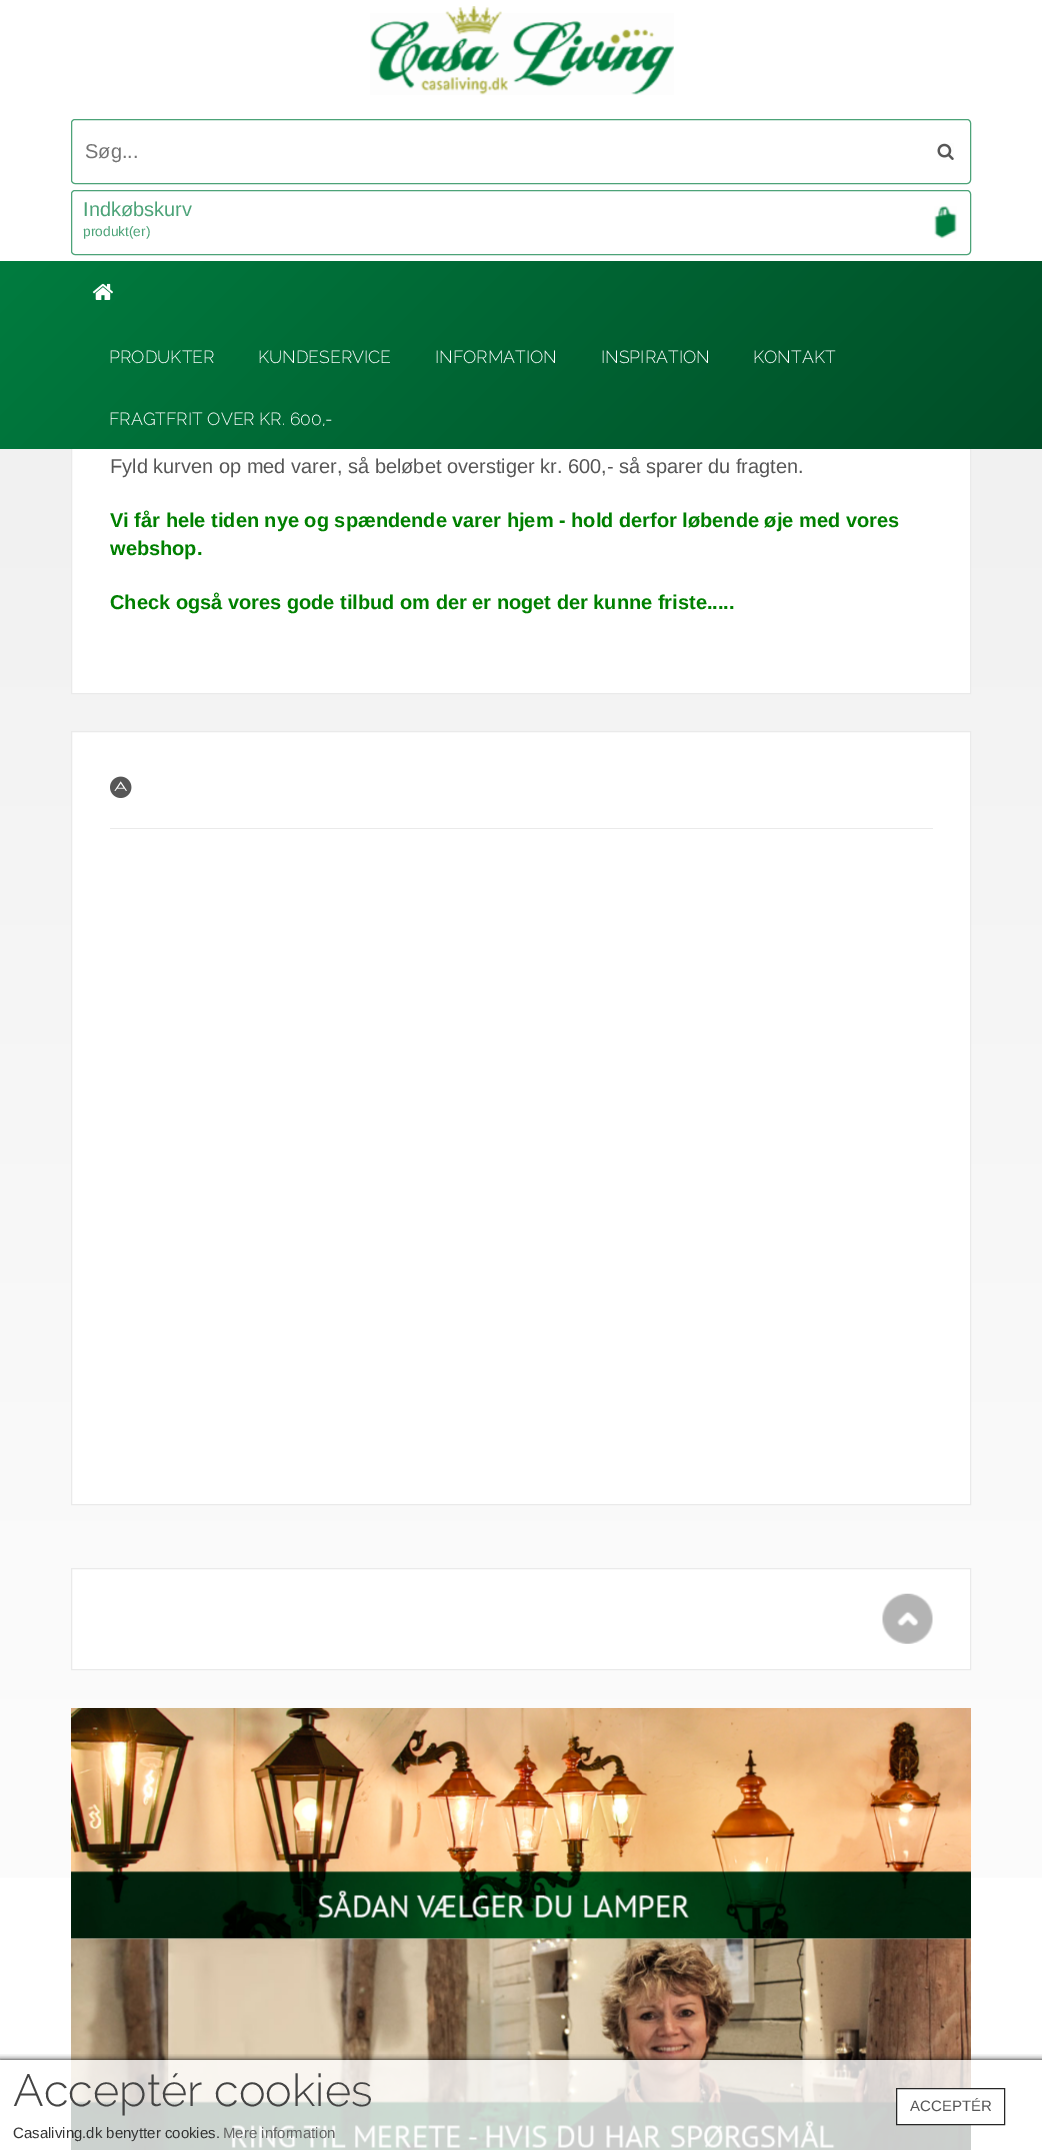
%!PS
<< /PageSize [1042 2150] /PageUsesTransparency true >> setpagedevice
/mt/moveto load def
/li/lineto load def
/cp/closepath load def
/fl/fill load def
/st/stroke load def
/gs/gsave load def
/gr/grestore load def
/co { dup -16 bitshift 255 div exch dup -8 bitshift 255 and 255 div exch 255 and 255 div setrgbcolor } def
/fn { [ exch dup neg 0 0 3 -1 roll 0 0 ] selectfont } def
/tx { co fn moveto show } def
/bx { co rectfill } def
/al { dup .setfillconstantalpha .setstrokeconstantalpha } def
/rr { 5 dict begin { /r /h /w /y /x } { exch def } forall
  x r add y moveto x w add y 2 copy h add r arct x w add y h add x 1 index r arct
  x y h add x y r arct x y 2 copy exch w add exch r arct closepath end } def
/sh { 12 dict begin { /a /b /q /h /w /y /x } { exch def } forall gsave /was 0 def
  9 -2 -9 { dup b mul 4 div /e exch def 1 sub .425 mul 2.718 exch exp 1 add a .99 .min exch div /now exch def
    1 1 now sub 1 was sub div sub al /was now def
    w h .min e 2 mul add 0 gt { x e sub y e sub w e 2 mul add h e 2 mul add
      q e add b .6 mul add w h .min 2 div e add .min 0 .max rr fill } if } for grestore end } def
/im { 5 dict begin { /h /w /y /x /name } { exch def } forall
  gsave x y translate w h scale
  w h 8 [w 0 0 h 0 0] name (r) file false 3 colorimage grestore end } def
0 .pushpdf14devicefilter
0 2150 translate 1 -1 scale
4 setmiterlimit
0 0 1042 2150 16#FFFFFF bx
(media/1.raw) 370 6 304 89 im
16#4CA378 co
71.5 119.5 899 64 3.5 rr st
(media/2.raw) 937 143 17 17 im
(media/3.raw) 934 206 23 33 im
71.5 190.5 899 64 3.5 rr st
gs 0 449 mt 1042 449 li 1042 1878 li 0 1878 li cp clip newpath
<< /ShadingType 2 /ColorSpace /DeviceRGB /Coords [521 13 521 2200] /Extend [true true] /Function << /FunctionType 2 /Domain [0 1] /C0 [.933 .933 .933] /C1 [1 1 1] /N 1 >> >> shfill gr
72 449 898 244 16#FFFFFF bx
16#EAEAEA co
71.5 344.5 899 349 rectstroke
gs 0 261 mt 1042 261 li 1042 449 li 0 449 li cp clip newpath
<< /ShadingType 2 /ColorSpace /DeviceRGB /Coords [214 48 829 663] /Extend [true true] /Function << /FunctionType 2 /Domain [0 1] /C0 [0 .486 .247] /C1 [0 .302 .153] /N 1 >> >> shfill gr
(media/4.raw) 92 283 21 17 im
16#FFFFFF co
71.5 731.5 mt 970.5 731.5 li 970.5 1504.5 li 71.5 1504.5 li cp gs fl gr
16#EAEAEA co
st
(media/5.raw) 110 776 22 22 im
110 828 823 1 16#EAEAEA bx
16#FFFFFF co
71.5 1568.5 mt 970.5 1568.5 li 970.5 1669.5 li 71.5 1669.5 li cp gs fl gr
16#EAEAEA co
st
(media/6.raw) 882 1593 51 51 im
(media/7.raw) 71 1708 900 232 im
(media/8.raw) 71 1938 900 212 im
gs
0 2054 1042 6 rectclip
16#000000 co
0 2060 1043 90 0 3 1 sh
gr
0.8 al
71 2060 900 90 16#FFFFFF bx
1 al
897 2089 74 35 16#FFFFFF bx
16#262626 co
896.5 2088.5 108 36 rectstroke
(Søg...) 85 158 /LiberationSans-Regular 20 16#757575 tx
(Indkøbskurv) 83 216 /LiberationSans-Regular 20 16#4CA378 tx
(produkt\(er\)) 83 236 /LiberationSans-Regular 13.75 16#4CA378 tx
(PRODUKTER) 109 363 /Raleway-Light 17.5 16#FFFFFF tx
(KUNDESERVICE) 258 363 /Raleway-Light 17.5 16#FFFFFF tx
(INFORMATION) 435 363 /Raleway-Light 17.5 16#FFFFFF tx
(INSPIRATION) 601 363 /Raleway-Light 17.5 16#FFFFFF tx
(KONTAKT) 753 363 /Raleway-Light 17.5 16#FFFFFF tx
(FRAGTFRIT OVER KR. 600,-) 109 425 /Raleway-Light 17.5 16#FFFFFF tx
(Fyld kurven op med varer, så beløbet overstiger kr. 600,- så sparer du fragten.) 110 473 /LiberationSans-Regular 20 16#565656 tx
(Vi får hele tiden nye og spændende varer hjem - hold derfor løbende øje med vores) 110 527 /LiberationSans-Bold 20 16#008000 tx
(webshop.) 110 555 /LiberationSans-Bold 20 16#008000 tx
(Check også vores gode tilbud om der er noget der kunne friste.....) 110 609 /LiberationSans-Bold 20 16#008000 tx
(Acceptér cookies) 13 2106 /Raleway-Light 45 16#444444 tx
(ACCEPTÉR) 910 2111 /LiberationSans-Regular 15 16#565656 tx
(Casaliving.dk benytter cookies.) 13 2138 /LiberationSans-Regular 15 16#333333 tx
(Mere information) 223 2138 /LiberationSans-Regular 15 16#656565 tx
.poppdf14devicefilter showpage
